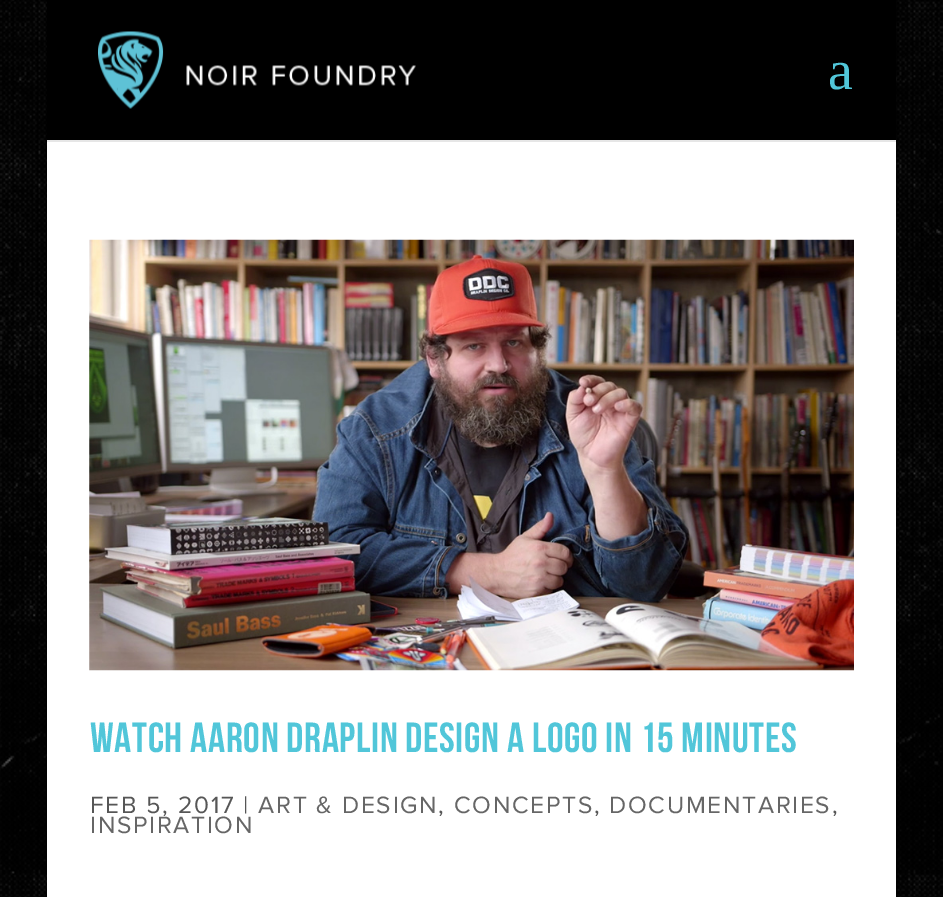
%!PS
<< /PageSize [943 897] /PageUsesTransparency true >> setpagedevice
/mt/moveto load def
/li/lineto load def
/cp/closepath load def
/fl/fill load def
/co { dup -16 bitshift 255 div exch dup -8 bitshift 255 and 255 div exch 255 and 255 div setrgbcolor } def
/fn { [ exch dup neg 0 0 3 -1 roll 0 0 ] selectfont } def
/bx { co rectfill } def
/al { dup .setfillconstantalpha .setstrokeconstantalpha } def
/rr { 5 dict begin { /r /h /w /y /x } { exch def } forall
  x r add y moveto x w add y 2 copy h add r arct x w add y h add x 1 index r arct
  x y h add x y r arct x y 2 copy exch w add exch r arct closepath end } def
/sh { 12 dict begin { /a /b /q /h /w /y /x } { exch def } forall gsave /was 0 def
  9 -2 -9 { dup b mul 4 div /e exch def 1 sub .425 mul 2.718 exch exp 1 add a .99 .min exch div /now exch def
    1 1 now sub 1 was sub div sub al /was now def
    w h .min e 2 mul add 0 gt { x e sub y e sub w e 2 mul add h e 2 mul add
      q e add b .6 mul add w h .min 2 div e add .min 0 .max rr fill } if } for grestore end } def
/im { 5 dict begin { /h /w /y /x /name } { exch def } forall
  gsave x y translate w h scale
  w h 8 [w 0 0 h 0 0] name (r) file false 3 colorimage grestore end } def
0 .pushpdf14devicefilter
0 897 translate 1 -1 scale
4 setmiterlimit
0 0 943 897 16#FFFFFF bx
(media/1.raw) 0 0 943 897 im
16#000000 co
47 0 849 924 0 9 .2 sh
16#E6E6E6 co
47 2 mt 47 142 li 896 142 li 896 140 li 47 140 li cp fl
47 0 849 140 16#000000 bx
(media/2.raw) 98 31 318 78 im
47 142 849 755 16#FFFFFF bx
(media/3.raw) 89 239 765 432 im
/LiberationSerif-Regular 56 fn
16#51C6D9 co
828 89 mt .65 0 (a) ashow
/BebasNeue-Bold 42 fn
90 752 mt .65 0 (WATCH AARON DRAPLIN DESIGN A LOGO IN 15 MINUTES) ashow
/ProximaNova-Regular 24.5 fn
16#565656 co
90 813 mt 1.75 0 (FEB 5, 2017 |) ashow
16#666666 co
258 813 mt 1.75 0 (ART & DESIGN) ashow
16#565656 co
438 813 mt 1.75 0 (,) ashow
16#666666 co
454 813 mt 1.75 0 (CONCEPTS) ashow
16#565656 co
594 813 mt 1.75 0 (,) ashow
16#666666 co
609 813 mt 1.75 0 (DOCUMENTARIES) ashow
16#565656 co
832 813 mt 1.75 0 (,) ashow
16#666666 co
90 833 mt 1.75 0 (INSPIRATION) ashow
.poppdf14devicefilter showpage
